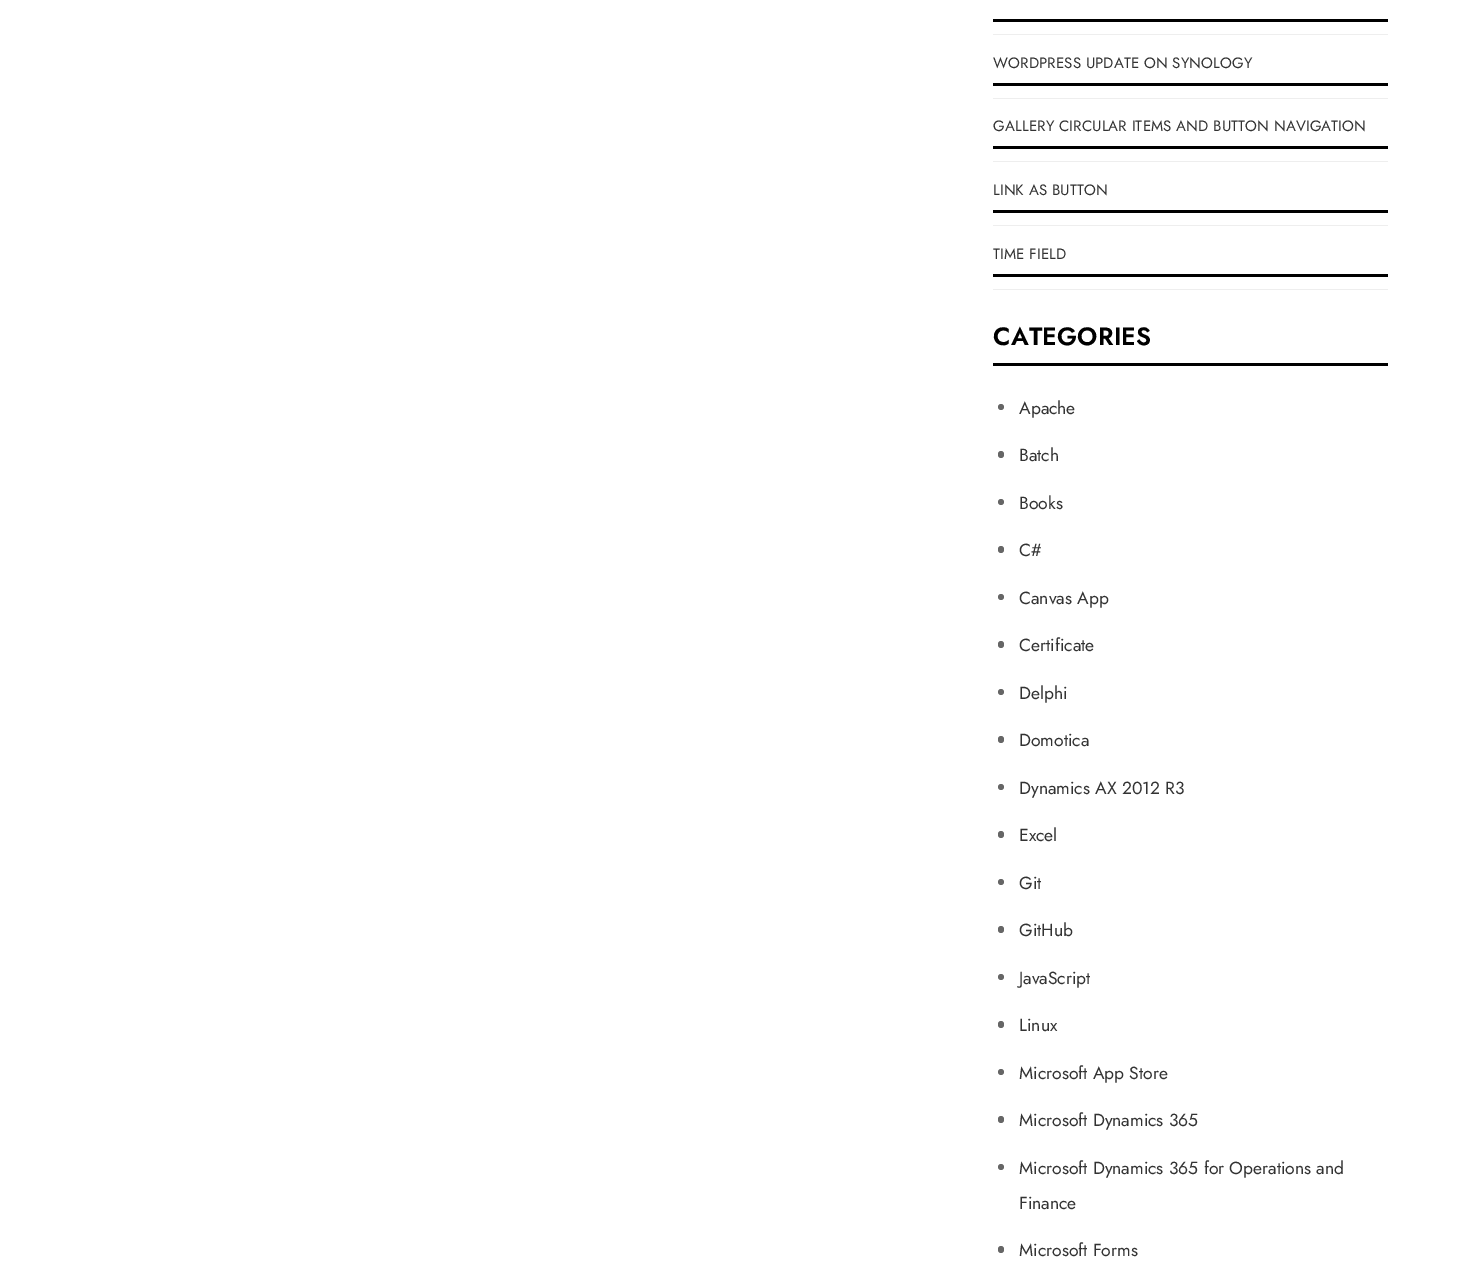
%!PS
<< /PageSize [1459 1273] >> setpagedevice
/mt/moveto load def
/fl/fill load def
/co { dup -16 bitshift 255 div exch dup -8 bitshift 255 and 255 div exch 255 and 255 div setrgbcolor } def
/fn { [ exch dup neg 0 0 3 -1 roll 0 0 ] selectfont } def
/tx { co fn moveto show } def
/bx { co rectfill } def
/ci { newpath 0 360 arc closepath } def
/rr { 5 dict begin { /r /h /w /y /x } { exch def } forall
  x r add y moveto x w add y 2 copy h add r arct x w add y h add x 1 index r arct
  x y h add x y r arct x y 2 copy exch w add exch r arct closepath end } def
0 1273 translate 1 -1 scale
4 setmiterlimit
0 0 1459 1273 16#FFFFFF bx
993 34 395 1 16#EEEEEE bx
993 19 395 3 16#000000 bx
993 98 395 1 16#EEEEEE bx
993 83 395 3 16#000000 bx
993 161 395 1 16#EEEEEE bx
993 146 395 3 16#000000 bx
993 225 395 1 16#EEEEEE bx
993 210 395 3 16#000000 bx
993 289 395 1 16#EEEEEE bx
993 274 395 3 16#000000 bx
993 363 395 3 16#000000 bx
16#666666 co
1001 407 3 ci fl
998 451 6 7 3 rr fl
1001 502 3 ci fl
998 546 6 7 3 rr fl
1001 597 3 ci fl
998 641 6 7 3 rr fl
1001 692 3 ci fl
998 736 6 7 3 rr fl
1001 787 3 ci fl
998 831 6 7 3 rr fl
1001 882 3 ci fl
998 926 6 7 3 rr fl
1001 977 3 ci fl
998 1021 6 7 3 rr fl
1001 1072 3 ci fl
998 1116 6 7 3 rr fl
1001 1167 3 ci fl
998 1246 6 7 3 rr fl
/Jost-Regular 15 fn
16#333333 co
993 68 mt .15 0 (WORDPRESS UPDATE ON SYNOLOGY) ashow
993 131 mt .15 0 (GALLERY CIRCULAR ITEMS AND BUTTON NAVIGATION) ashow
993 195 mt .15 0 (LINK AS BUTTON) ashow
993 259 mt .15 0 (TIME FIELD) ashow
/Jost-SemiBold 25 fn
16#000000 co
993 345 mt .25 0 (CATEGORIES) ashow
(Apache) 1019 414 /Jost-Regular 17.5 16#333333 tx
(Batch) 1019 461 /Jost-Regular 17.5 16#333333 tx
(Books) 1019 509 /Jost-Regular 17.5 16#333333 tx
(C#) 1019 556 /Jost-Regular 17.5 16#333333 tx
(Canvas App) 1019 604 /Jost-Regular 17.5 16#333333 tx
(Certificate) 1019 651 /Jost-Regular 17.5 16#333333 tx
(Delphi) 1019 699 /Jost-Regular 17.5 16#333333 tx
(Domotica) 1019 746 /Jost-Regular 17.5 16#333333 tx
(Dynamics AX 2012 R3) 1019 794 /Jost-Regular 17.5 16#333333 tx
(Excel) 1019 841 /Jost-Regular 17.5 16#333333 tx
(Git) 1019 889 /Jost-Regular 17.5 16#333333 tx
(GitHub) 1019 936 /Jost-Regular 17.5 16#333333 tx
(JavaScript) 1019 984 /Jost-Regular 17.5 16#333333 tx
(Linux) 1019 1031 /Jost-Regular 17.5 16#333333 tx
(Microsoft App Store) 1019 1079 /Jost-Regular 17.5 16#333333 tx
(Microsoft Dynamics 365) 1019 1126 /Jost-Regular 17.5 16#333333 tx
(Microsoft Dynamics 365 for Operations and) 1019 1174 /Jost-Regular 17.5 16#333333 tx
(Finance) 1019 1209 /Jost-Regular 17.5 16#333333 tx
(Microsoft Forms) 1019 1256 /Jost-Regular 17.5 16#333333 tx
showpage
